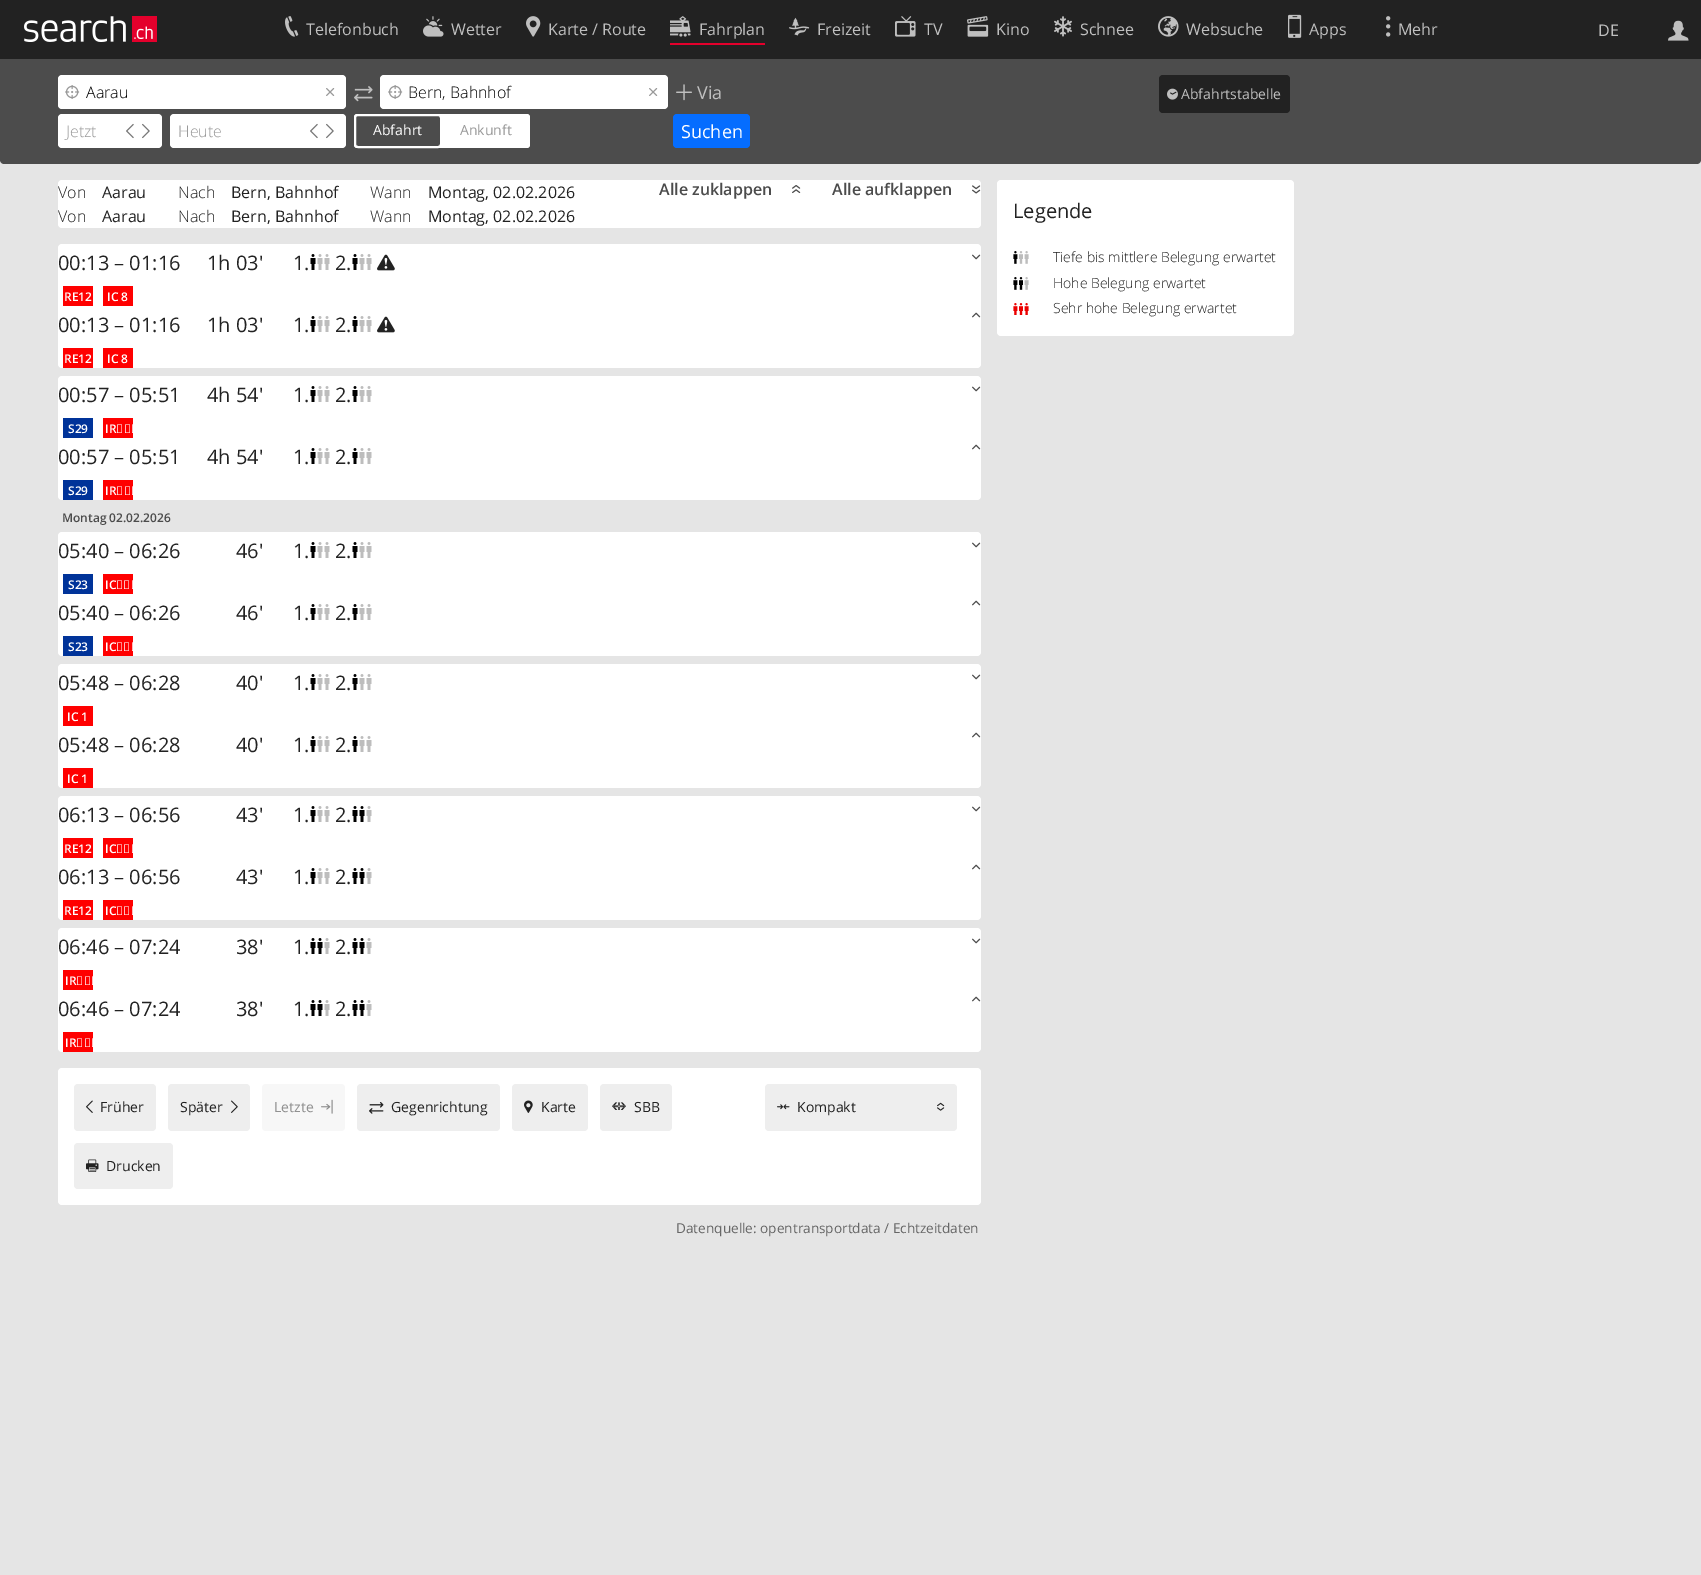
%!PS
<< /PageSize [1701 1575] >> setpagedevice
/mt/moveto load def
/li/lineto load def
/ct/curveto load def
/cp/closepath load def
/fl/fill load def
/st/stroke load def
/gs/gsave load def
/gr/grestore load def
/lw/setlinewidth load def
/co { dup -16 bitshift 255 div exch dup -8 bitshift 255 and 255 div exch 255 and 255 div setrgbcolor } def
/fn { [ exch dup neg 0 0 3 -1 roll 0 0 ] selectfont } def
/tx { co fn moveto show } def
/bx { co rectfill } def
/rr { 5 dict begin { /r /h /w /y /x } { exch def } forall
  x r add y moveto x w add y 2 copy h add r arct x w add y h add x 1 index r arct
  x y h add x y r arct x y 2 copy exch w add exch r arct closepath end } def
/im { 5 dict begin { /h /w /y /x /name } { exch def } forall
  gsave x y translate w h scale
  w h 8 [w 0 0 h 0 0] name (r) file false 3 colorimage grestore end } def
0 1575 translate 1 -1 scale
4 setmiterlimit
0 0 1701 1575 16#E5E5E5 bx
0 0 1701 59 16#222222 bx
(media/1.raw) 24 16 133 26 im
(media/2.raw) 285 16 14 21 im
(media/3.raw) 423 16 21 21 im
(media/4.raw) 526 16 15 21 im
670 43 95 2 16#E4002C bx
(media/5.raw) 670 16 21 21 im
(media/6.raw) 789 17 21 19 im
(media/7.raw) 895 16 21 21 im
(media/8.raw) 967 16 22 21 im
(media/9.raw) 1054 16 18 21 im
(media/10.raw) 1158 16 21 21 im
(media/11.raw) 1288 14 14 24 im
(media/12.raw) 1386 16 5 21 im
(media/13.raw) 1668 20 21 21 im
16#4C4C4C co
0 59 mt 1701 59 li 1701 160 li 1701 162 1699 164 1697 164 ct 4 164 li 2 164 0 162 0 160 ct cp fl
16#FFFFFF co
58 75 288 34 4 rr fl
(media/14.raw) 65 85 15 14 im
(media/15.raw) 326 88 9 8 im
(media/16.raw) 354 86 19 16 im
380 75 288 34 4 rr fl
(media/14.raw) 388 85 15 14 im
(media/15.raw) 649 88 9 8 im
(media/17.raw) 676 84 16 17 im
58 114 104 34 4 rr fl
(media/18.raw) 126 123 8 16 im
(media/19.raw) 142 123 8 16 im
170 114 176 34 4 rr fl
(media/18.raw) 310 123 8 16 im
(media/19.raw) 326 123 8 16 im
354 114 176 34 3 rr fl
16#4C4C4C co
355 115 86 32 3 rr gs fl gr
16#FFFFFF co
2 lw
st
16#056DFF co
673 114 77 34 4 rr fl
16#222222 co
1159 75 131 38 4 rr fl
(media/20.raw) 1167 88 11 12 im
16#FFFFFF co
58 180 923 48 4 rr fl
(media/21.raw) 792 185 9 9 im
(media/22.raw) 972 185 9 9 im
58 244 923 124 4 rr fl
(media/23.raw) 310 254 20 16 im
(media/23.raw) 352 254 20 16 im
(media/24.raw) 377 254 18 17 im
(media/25.raw) 972 254 9 6 im
63 286 30 20 16#FF0000 bx
103 286 30 20 16#FF0000 bx
(media/26.raw) 972 312 9 6 im
(media/23.raw) 310 316 20 16 im
(media/23.raw) 352 316 20 16 im
(media/24.raw) 377 316 18 17 im
63 348 30 20 16#FF0000 bx
103 348 30 20 16#FF0000 bx
16#FFFFFF co
58 376 923 124 4 rr fl
(media/23.raw) 310 386 20 16 im
(media/23.raw) 352 386 20 16 im
(media/25.raw) 972 386 9 6 im
63 418 30 20 16#003399 bx
103 418 30 20 16#FF0000 bx
(media/26.raw) 972 444 9 6 im
(media/23.raw) 310 448 20 16 im
(media/23.raw) 352 448 20 16 im
63 480 30 20 16#003399 bx
103 480 30 20 16#FF0000 bx
16#FFFFFF co
58 532 923 124 4 rr fl
(media/23.raw) 310 542 20 16 im
(media/23.raw) 352 542 20 16 im
(media/25.raw) 972 542 9 6 im
63 574 30 20 16#003399 bx
103 574 30 20 16#FF0000 bx
(media/26.raw) 972 600 9 6 im
(media/23.raw) 310 604 20 16 im
(media/23.raw) 352 604 20 16 im
63 636 30 20 16#003399 bx
103 636 30 20 16#FF0000 bx
16#FFFFFF co
58 664 923 124 4 rr fl
(media/23.raw) 310 674 20 16 im
(media/23.raw) 352 674 20 16 im
(media/25.raw) 972 674 9 6 im
63 706 30 20 16#FF0000 bx
(media/26.raw) 972 732 9 6 im
(media/23.raw) 310 736 20 16 im
(media/23.raw) 352 736 20 16 im
63 768 30 20 16#FF0000 bx
16#FFFFFF co
58 796 923 124 4 rr fl
(media/23.raw) 310 806 20 16 im
(media/27.raw) 352 806 20 16 im
(media/25.raw) 972 806 9 6 im
63 838 30 20 16#FF0000 bx
103 838 30 20 16#FF0000 bx
(media/26.raw) 972 864 9 6 im
(media/23.raw) 310 868 20 16 im
(media/27.raw) 352 868 20 16 im
63 900 30 20 16#FF0000 bx
103 900 30 20 16#FF0000 bx
16#FFFFFF co
58 928 923 124 4 rr fl
(media/27.raw) 310 938 20 16 im
(media/27.raw) 352 938 20 16 im
(media/25.raw) 972 938 9 6 im
63 970 30 20 16#FF0000 bx
(media/26.raw) 972 996 9 6 im
(media/27.raw) 310 1000 20 16 im
(media/27.raw) 352 1000 20 16 im
63 1032 30 20 16#FF0000 bx
16#FFFFFF co
58 1068 923 137 4 rr fl
16#EEEEEE co
74 1084 82 47 4 rr fl
(media/28.raw) 86 1100 7 13 im
168 1084 82 47 4 rr fl
(media/29.raw) 231 1100 7 13 im
16#F7F7F7 co
262 1084 83 47 4 rr fl
(media/30.raw) 321 1099 12 15 im
16#EEEEEE co
357 1084 143 47 4 rr fl
(media/31.raw) 369 1102 15 12 im
512 1084 76 47 4 rr fl
(media/32.raw) 524 1100 9 13 im
600 1084 72 47 4 rr fl
(media/33.raw) 612 1102 14 8 im
765 1084 192 47 4 rr fl
(media/34.raw) 777 1104 13 6 im
(media/35.raw) 937 1102 8 9 im
74 1143 99 46 4 rr fl
(media/36.raw) 86 1159 13 13 im
16#FFFFFF co
997 180 297 156 4 rr fl
(media/37.raw) 1013 251 16 13 im
(media/38.raw) 1013 277 16 13 im
(media/39.raw) 1013 303 16 12 im
(Telefonbuch) 306 35 /OpenSans-Regular 16 16#BFBFBF tx
(Wetter) 451 35 /OpenSans-Regular 16 16#BFBFBF tx
(Karte / Route) 548 35 /OpenSans-Regular 16 16#BFBFBF tx
(Fahrplan) 699 35 /OpenSans-Regular 16 16#BFBFBF tx
(Freizeit) 817 35 /OpenSans-Regular 16 16#BFBFBF tx
(TV) 924 35 /OpenSans-Regular 16 16#BFBFBF tx
(Kino) 996 35 /OpenSans-Regular 16 16#BFBFBF tx
(Schnee) 1080 35 /OpenSans-Regular 16 16#BFBFBF tx
(Websuche) 1186 35 /OpenSans-Regular 16 16#BFBFBF tx
(Apps) 1309 35 /OpenSans-Regular 16 16#BFBFBF tx
(Mehr) 1398 35 /OpenSans-Regular 16 16#BFBFBF tx
(DE) 1598 36 /OpenSans-Regular 16 16#BFBFBF tx
(Aarau) 86 98 /OpenSans-Light 16 16#000000 tx
(Bern, Bahnhof) 408 98 /OpenSans-Light 16 16#000000 tx
(Via) 697 99 /OpenSans-Regular 18 16#BFBFBF tx
(Jetzt) 66 137 /OpenSans-Light 16 16#999999 tx
(Heute) 178 137 /OpenSans-Light 16 16#999999 tx
(Abfahrt) 373 135 /OpenSans-Regular 14 16#FFFFFF tx
(Ankunft) 460 135 /OpenSans-Regular 14 16#999999 tx
(Suchen) 681 138 /OpenSans-Regular 18 16#FFFFFF tx
(Abfahrtstabelle) 1181 99 /OpenSans-Regular 14 16#BFBFBF tx
(Von) 58 198 /OpenSans-Light 16 16#222222 tx
(Aarau) 102 198 /OpenSans-Regular 16 16#222222 tx
(Nach) 178 198 /OpenSans-Light 16 16#222222 tx
(Bern, Bahnhof) 231 198 /OpenSans-Regular 16 16#222222 tx
(Wann) 370 198 /OpenSans-Light 16 16#222222 tx
(Montag, 02.02.2026) 428 198 /OpenSans-Regular 16 16#222222 tx
(Alle zuklappen) 659 195 /OpenSans-SemiBold 16 16#4C4C4C tx
(Alle aufklappen) 832 195 /OpenSans-SemiBold 16 16#4C4C4C tx
(Von) 58 222 /OpenSans-Light 16 16#222222 tx
(Aarau) 102 222 /OpenSans-Regular 16 16#222222 tx
(Nach) 178 222 /OpenSans-Light 16 16#222222 tx
(Bern, Bahnhof) 231 222 /OpenSans-Regular 16 16#222222 tx
(Wann) 370 222 /OpenSans-Light 16 16#222222 tx
(Montag, 02.02.2026) 428 222 /OpenSans-Regular 16 16#222222 tx
(00:13 – 01:16) 58 270 /OpenSans-Regular 20 16#222222 tx
(1h 03') 207 270 /OpenSans-Regular 20 16#222222 tx
(1.) 293 270 /OpenSans-Regular 20 16#222222 tx
(2.) 335 270 /OpenSans-Regular 20 16#222222 tx
(RE12) 64 301 /OpenSans-SemiBold 12 16#FFFFFF tx
(IC 8) 107 301 /OpenSans-SemiBold 12 16#FFFFFF tx
(00:13 – 01:16) 58 332 /OpenSans-Regular 20 16#222222 tx
(1h 03') 207 332 /OpenSans-Regular 20 16#222222 tx
(1.) 293 332 /OpenSans-Regular 20 16#222222 tx
(2.) 335 332 /OpenSans-Regular 20 16#222222 tx
(RE12) 64 363 /OpenSans-SemiBold 12 16#FFFFFF tx
(IC 8) 107 363 /OpenSans-SemiBold 12 16#FFFFFF tx
(00:57 – 05:51) 58 402 /OpenSans-Regular 20 16#222222 tx
(4h 54') 207 402 /OpenSans-Regular 20 16#222222 tx
(1.) 293 402 /OpenSans-Regular 20 16#222222 tx
(2.) 335 402 /OpenSans-Regular 20 16#222222 tx
(S29) 68 433 /OpenSans-SemiBold 12 16#FFFFFF tx
(IR 17) 105 433 /OpenSans-SemiBold 12 16#FFFFFF tx
(00:57 – 05:51) 58 464 /OpenSans-Regular 20 16#222222 tx
(4h 54') 207 464 /OpenSans-Regular 20 16#222222 tx
(1.) 293 464 /OpenSans-Regular 20 16#222222 tx
(2.) 335 464 /OpenSans-Regular 20 16#222222 tx
(S29) 68 495 /OpenSans-SemiBold 12 16#FFFFFF tx
(IR 17) 105 495 /OpenSans-SemiBold 12 16#FFFFFF tx
(Montag 02.02.2026) 62 522 /OpenSans-SemiBold 12 16#4C4C4C tx
(05:40 – 06:26) 58 558 /OpenSans-Regular 20 16#222222 tx
(46') 236 558 /OpenSans-Regular 20 16#222222 tx
(1.) 293 558 /OpenSans-Regular 20 16#222222 tx
(2.) 335 558 /OpenSans-Regular 20 16#222222 tx
(S23) 68 589 /OpenSans-SemiBold 12 16#FFFFFF tx
(IC 61) 105 589 /OpenSans-SemiBold 12 16#FFFFFF tx
(05:40 – 06:26) 58 620 /OpenSans-Regular 20 16#222222 tx
(46') 236 620 /OpenSans-Regular 20 16#222222 tx
(1.) 293 620 /OpenSans-Regular 20 16#222222 tx
(2.) 335 620 /OpenSans-Regular 20 16#222222 tx
(S23) 68 651 /OpenSans-SemiBold 12 16#FFFFFF tx
(IC 61) 105 651 /OpenSans-SemiBold 12 16#FFFFFF tx
(05:48 – 06:28) 58 690 /OpenSans-Regular 20 16#222222 tx
(40') 236 690 /OpenSans-Regular 20 16#222222 tx
(1.) 293 690 /OpenSans-Regular 20 16#222222 tx
(2.) 335 690 /OpenSans-Regular 20 16#222222 tx
(IC 1) 67 721 /OpenSans-SemiBold 12 16#FFFFFF tx
(05:48 – 06:28) 58 752 /OpenSans-Regular 20 16#222222 tx
(40') 236 752 /OpenSans-Regular 20 16#222222 tx
(1.) 293 752 /OpenSans-Regular 20 16#222222 tx
(2.) 335 752 /OpenSans-Regular 20 16#222222 tx
(IC 1) 67 783 /OpenSans-SemiBold 12 16#FFFFFF tx
(06:13 – 06:56) 58 822 /OpenSans-Regular 20 16#222222 tx
(43') 236 822 /OpenSans-Regular 20 16#222222 tx
(1.) 293 822 /OpenSans-Regular 20 16#222222 tx
(2.) 335 822 /OpenSans-Regular 20 16#222222 tx
(RE12) 64 853 /OpenSans-SemiBold 12 16#FFFFFF tx
(IC 61) 105 853 /OpenSans-SemiBold 12 16#FFFFFF tx
(06:13 – 06:56) 58 884 /OpenSans-Regular 20 16#222222 tx
(43') 236 884 /OpenSans-Regular 20 16#222222 tx
(1.) 293 884 /OpenSans-Regular 20 16#222222 tx
(2.) 335 884 /OpenSans-Regular 20 16#222222 tx
(RE12) 64 915 /OpenSans-SemiBold 12 16#FFFFFF tx
(IC 61) 105 915 /OpenSans-SemiBold 12 16#FFFFFF tx
(06:46 – 07:24) 58 954 /OpenSans-Regular 20 16#222222 tx
(38') 236 954 /OpenSans-Regular 20 16#222222 tx
(1.) 293 954 /OpenSans-Regular 20 16#222222 tx
(2.) 335 954 /OpenSans-Regular 20 16#222222 tx
(IR 16) 65 985 /OpenSans-SemiBold 12 16#FFFFFF tx
(06:46 – 07:24) 58 1016 /OpenSans-Regular 20 16#222222 tx
(38') 236 1016 /OpenSans-Regular 20 16#222222 tx
(1.) 293 1016 /OpenSans-Regular 20 16#222222 tx
(2.) 335 1016 /OpenSans-Regular 20 16#222222 tx
(IR 16) 65 1047 /OpenSans-SemiBold 12 16#FFFFFF tx
(Früher) 100 1112 /OpenSans-Regular 14 16#222222 tx
(Später) 180 1112 /OpenSans-Regular 14 16#222222 tx
(Letzte) 274 1112 /OpenSans-Regular 14 16#919191 tx
(Gegenrichtung) 391 1112 /OpenSans-Regular 14 16#222222 tx
(Karte) 541 1112 /OpenSans-Regular 14 16#222222 tx
(SBB) 634 1112 /OpenSans-Regular 14 16#222222 tx
(Kompakt) 797 1112 /OpenSans-Regular 14 16#222222 tx
(Drucken) 106 1171 /OpenSans-Regular 14 16#222222 tx
(Datenquelle: opentransportdata / Echtzeitdaten) 676 1233 /OpenSans-Regular 13.6 16#666666 tx
(Legende) 1013 218 /OpenSans-Regular 20 16#222222 tx
(Tiefe bis mittlere Belegung erwartet) 1053 262 /OpenSans-Light 14 16#222222 tx
(Hohe Belegung erwartet) 1053 288 /OpenSans-Light 14 16#222222 tx
(Sehr hohe Belegung erwartet) 1053 313 /OpenSans-Light 14 16#222222 tx
showpage
